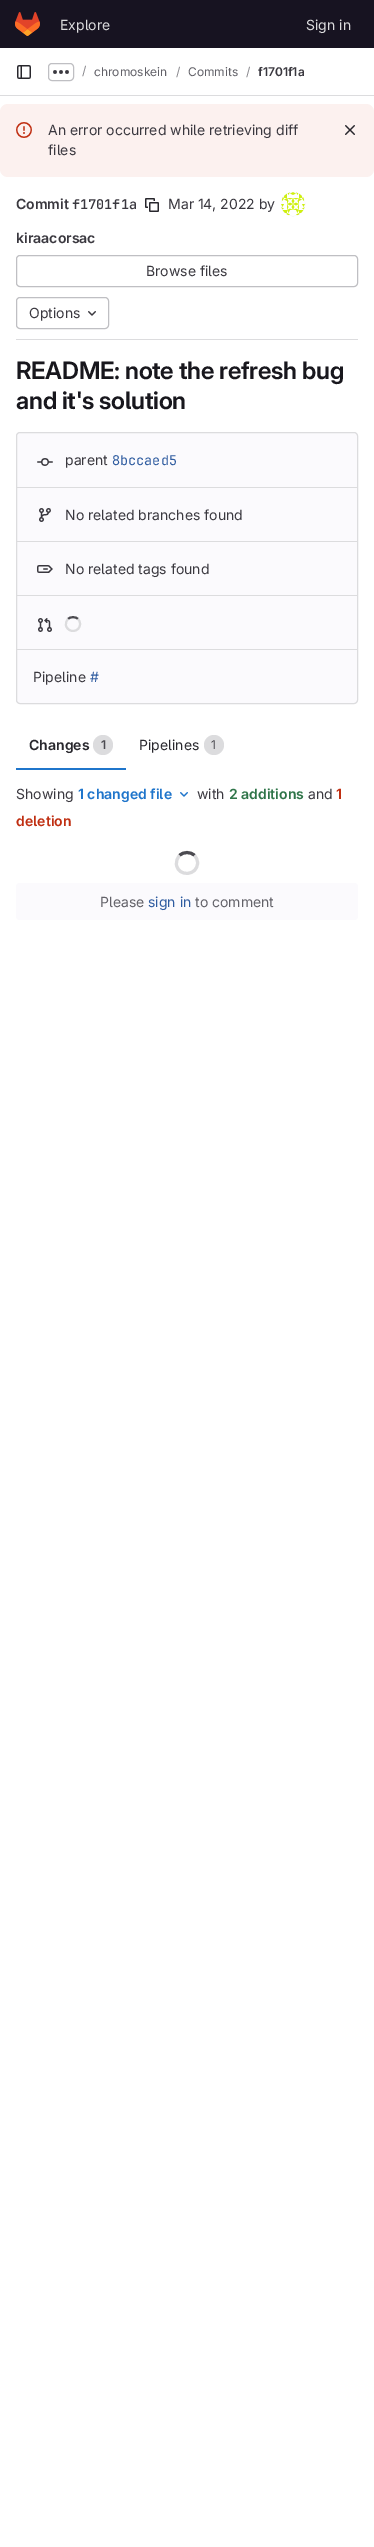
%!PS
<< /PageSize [374 2547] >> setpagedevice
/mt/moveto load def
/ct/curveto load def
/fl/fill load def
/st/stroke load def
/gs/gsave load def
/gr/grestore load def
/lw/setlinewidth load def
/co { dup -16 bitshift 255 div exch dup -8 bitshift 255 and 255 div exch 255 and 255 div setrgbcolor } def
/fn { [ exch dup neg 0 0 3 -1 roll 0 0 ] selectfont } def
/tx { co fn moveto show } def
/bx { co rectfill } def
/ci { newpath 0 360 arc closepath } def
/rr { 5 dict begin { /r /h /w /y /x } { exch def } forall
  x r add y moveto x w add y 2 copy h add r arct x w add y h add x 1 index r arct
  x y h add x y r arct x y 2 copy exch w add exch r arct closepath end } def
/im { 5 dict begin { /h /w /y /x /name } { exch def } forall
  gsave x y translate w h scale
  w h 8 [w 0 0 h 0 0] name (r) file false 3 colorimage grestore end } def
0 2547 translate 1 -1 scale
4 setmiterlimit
0 0 374 2547 16#FFFFFF bx
0 0 374 48 16#171321 bx
(media/1.raw) 15 12 25 24 im
0 95 374 1 16#DCDCDE bx
(media/2.raw) 17 65 14 14 im
16#BFBFC3 co
48.5 63.5 25 17 3.5 rr st
(media/3.raw) 53 70 16 4 im
16#FCF1EF co
0 104 374 73 8 rr fl
(media/4.raw) 16 122 16 16 im
(media/5.raw) 345 125 10 10 im
(media/6.raw) 145 198 14 14 im
16#E8E7E9 co
293 204 11.5 ci st
(media/7.raw) 281 192 24 24 im
16#BFBFC3 co
16.5 255.5 341 31 3.5 rr st
16.5 297.5 92 31 3.5 rr st
(media/8.raw) 88 311 8 5 im
16 339 342 1 16#DCDCDE bx
16#FBFAFD co
16.5 432.5 341 271 3.5 rr gs fl gr
16#DCDCDE co
st
(media/9.raw) 37 458 16 8 im
17 487 340 1 16#DCDCDE bx
(media/10.raw) 39 508 12 14 im
17 541 340 1 16#DCDCDE bx
(media/11.raw) 37 565 16 8 im
17 595 340 1 16#DCDCDE bx
(media/12.raw) 38 618 14 14 im
16#4C4B51 co
2 lw
68 619 mt 70.5 616.5 75.5 616.5 78 619 ct st
16#DCDCDE co
78 619 mt 79.5 620.5 80 622 80 624 ct 80 632.5 68 633.5 66 625.5 ct 65.5 623 66.5 620.5 68 619 ct st
17 649 340 1 16#DCDCDE bx
103 745 10 ci fl
16 768 110 2 16#1F75CB bx
16#DCDCDE co
214 745 10 ci fl
(media/13.raw) 180 792 8 5 im
16#4C4B51 co
3 lw
179.5 855.5 mt 183.5 851.5 190.5 851.5 194.5 855.5 ct st
16#DCDCDE co
194.5 855.5 mt 196.5 857.5 197.5 860 197.5 863 ct 197.5 875.5 179 877.5 176.5 865 ct 176 861.5 177 858 179.5 855.5 ct st
16#FBFAFD co
16 883 342 37 4 rr fl
(Explore) 60 30 /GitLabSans-Regular 14 16#DCDCDE tx
(Sign in) 306 30 /GitLabSans-Regular 14 16#DCDCDE tx
(/) 82 75 /GitLabSans-Regular 12 16#89888D tx
(chromoskein) 94 76 /GitLabSans-Regular 12 16#626168 tx
(/) 176 76 /GitLabSans-Regular 12 16#89888D tx
(Commits) 188 76 /GitLabSans-Regular 12 16#626168 tx
(/) 246 76 /GitLabSans-Regular 12 16#89888D tx
(f1701f1a) 258 76 /GitLabSans-SemiBold 12 16#3A383F tx
(An error occurred while retrieving diff) 48 135 /GitLabSans-Regular 14 16#3A383F tx
(files) 48 155 /GitLabSans-Regular 14 16#3A383F tx
(Commit) 16 209 /GitLabSans-SemiBold 14 16#3A383F tx
(f1701f1a) 72 209 /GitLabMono-SemiBold 13.5 16#3A383F tx
(Mar 14, 2022 by) 168 209 /GitLabSans-Regular 14 16#3A383F tx
(kiraacorsac) 16 243 /GitLabSans-SemiBold 14 16#3A383F tx
(Browse files) 146 276 /GitLabSans-Regular 14 16#3A383F tx
(Options) 29 318 /GitLabSans-Regular 14 16#3A383F tx
/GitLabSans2-SemiBold 24 fn
16#18171D co
16 379 mt -.25 0 (README: note the refresh bug) ashow
16 409 mt -.25 0 (and it's solution) ashow
(parent) 65 465 /GitLabSans-Regular 14 16#3A383F tx
(8bccaed5) 112 465 /GitLabMono-Regular 13.5 16#2F5CA0 tx
(No related branches found) 65 520 /GitLabSans-Regular 14 16#3A383F tx
(No related tags found) 65 574 /GitLabSans-Regular 14 16#3A383F tx
(Pipeline) 33 682 /GitLabSans-Regular 14 16#3A383F tx
(#) 90 682 /GitLabSans-Regular 14 16#2F5CA0 tx
(Changes) 29 750 /GitLabSans-SemiBold 14 16#28272D tx
(1) 101 749 /GitLabSans-SemiBold 12 16#4C4B51 tx
(Pipelines) 139 750 /GitLabSans-Regular 14 16#28272D tx
(1) 211 749 /GitLabSans-Regular 12 16#4C4B51 tx
(Showing) 16 799 /GitLabSans-Regular 14 16#3A383F tx
(1 changed file) 78 799 /GitLabSans-SemiBold 14 16#1F75CB tx
(with) 197 799 /GitLabSans-Regular 14 16#3A383F tx
(2 additions) 229 799 /GitLabSans-SemiBold 14 16#2F7549 tx
(and) 308 799 /GitLabSans-Regular 14 16#3A383F tx
(1) 336 799 /GitLabSans-SemiBold 14 16#C02F12 tx
(deletion) 16 826 /GitLabSans-SemiBold 14 16#C02F12 tx
(Please) 100 907 /GitLabSans-Regular 14 16#626168 tx
(sign in) 148 907 /GitLabSans-Regular 14 16#2F5CA0 tx
(to comment) 195 907 /GitLabSans-Regular 14 16#626168 tx
showpage
